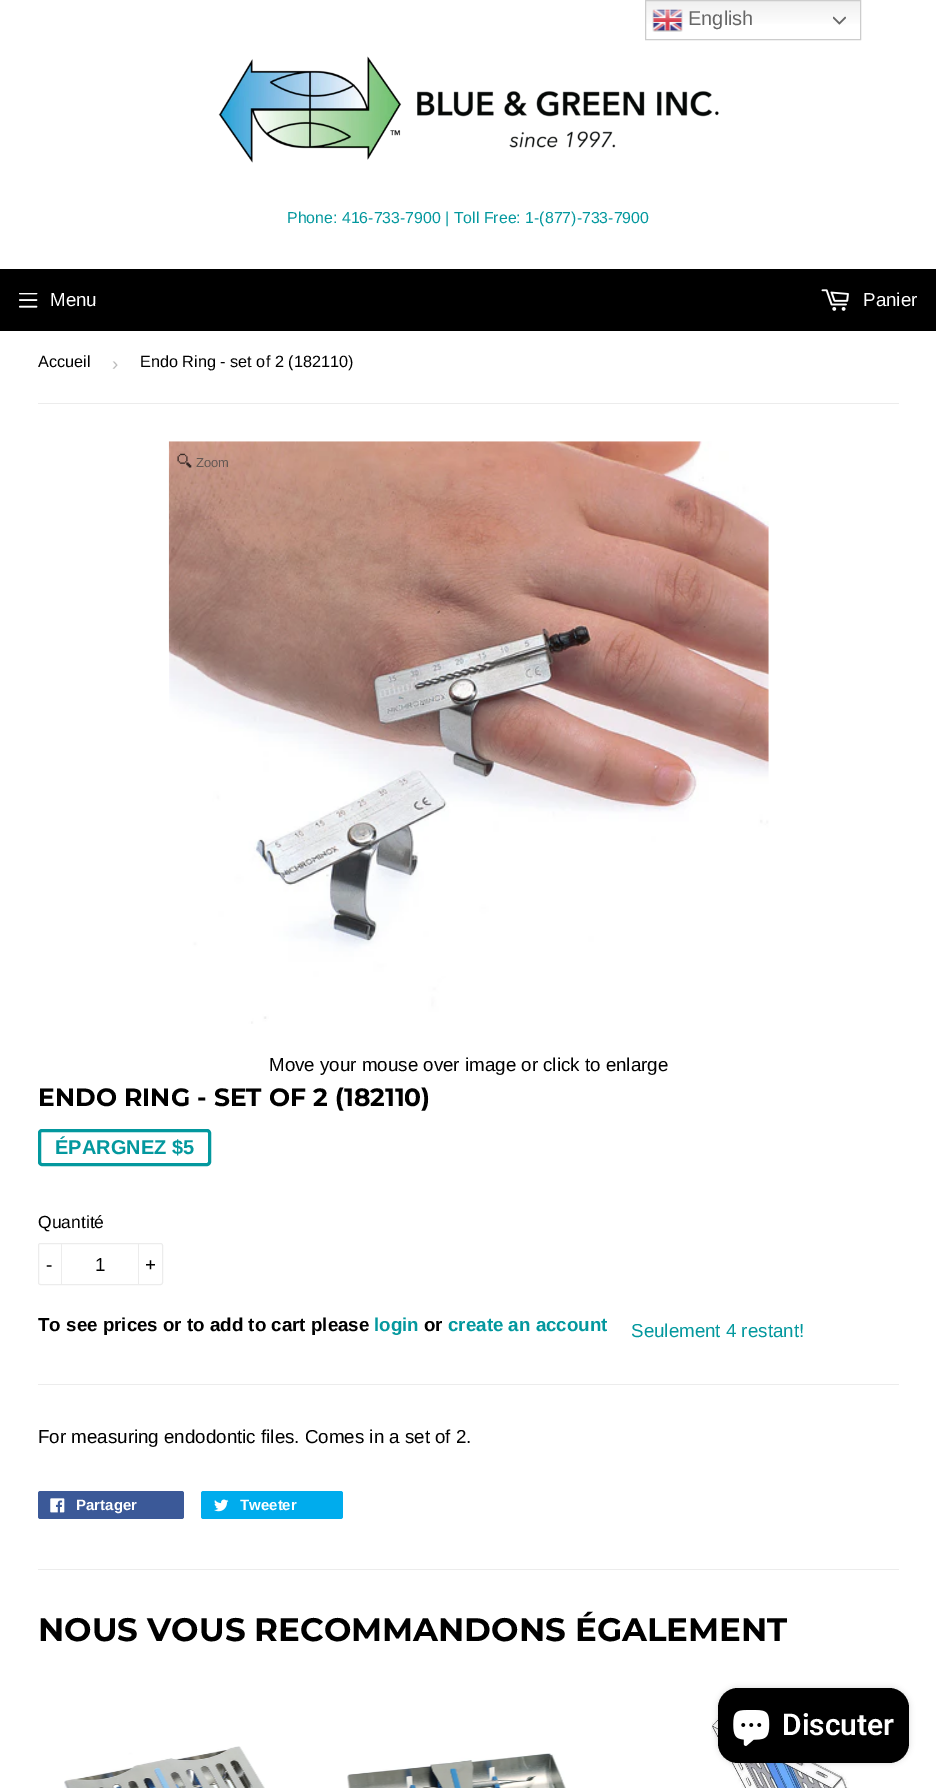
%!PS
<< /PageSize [936 1788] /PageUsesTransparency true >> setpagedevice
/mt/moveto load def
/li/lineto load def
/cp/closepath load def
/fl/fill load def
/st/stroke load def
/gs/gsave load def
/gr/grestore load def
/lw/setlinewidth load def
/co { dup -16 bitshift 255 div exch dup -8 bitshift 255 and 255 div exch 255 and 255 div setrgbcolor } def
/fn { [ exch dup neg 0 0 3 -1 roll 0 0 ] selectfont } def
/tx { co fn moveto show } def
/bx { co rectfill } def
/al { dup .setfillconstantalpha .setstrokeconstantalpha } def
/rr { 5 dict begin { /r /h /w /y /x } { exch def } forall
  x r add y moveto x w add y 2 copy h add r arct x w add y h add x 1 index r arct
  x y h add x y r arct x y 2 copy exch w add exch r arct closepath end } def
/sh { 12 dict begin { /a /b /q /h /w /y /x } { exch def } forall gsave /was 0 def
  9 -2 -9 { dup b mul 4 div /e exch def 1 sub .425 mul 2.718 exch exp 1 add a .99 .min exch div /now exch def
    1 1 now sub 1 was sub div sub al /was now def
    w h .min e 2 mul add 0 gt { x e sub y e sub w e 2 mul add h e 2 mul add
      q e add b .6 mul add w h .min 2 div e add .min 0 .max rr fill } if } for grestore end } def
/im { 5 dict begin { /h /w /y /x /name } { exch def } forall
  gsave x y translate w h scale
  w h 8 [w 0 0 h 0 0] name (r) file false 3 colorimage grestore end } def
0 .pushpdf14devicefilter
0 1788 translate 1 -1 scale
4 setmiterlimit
0 0 936 1788 16#FFFFFF bx
gs 646 1 mt 860 1 li 860 24 li 646 24 li cp clip newpath
<< /ShadingType 2 /ColorSpace /DeviceRGB /Coords [753 0 753 40] /Extend [true true] /Function << /FunctionType 3 /Domain [0 1] /Functions [<< /FunctionType 2 /Domain [0 1] /C0 [.937 .937 .937] /C1 [1 1 1] /N 1 >> << /FunctionType 2 /Domain [0 1] /C0 [1 1 1] /C1 [1 1 1] /N 1 >>] /Bounds [.7] /Encode [0 1 0 1] >> >> shfill gr
16#CCCCCC co
645.5 .5 215 39 rectstroke
(media/1.raw) 652 9 31 23 im
(media/2.raw) 833 16 13 9 im
(media/3.raw) 218 56 501 107 im
0 269 936 62 16#000000 bx
(media/4.raw) 19 293 19 15 im
(media/5.raw) 821 289 28 22 im
38 403 861 1 16#ECECEC bx
(media/6.raw) 168 441 601 583 im
(media/7.raw) 177 453 15 15 im
16#03989E co
3 lw
39.5 1130.5 170 34 2.5 rr st
16#ECECEC co
1 lw
38.5 1243.5 124 41 2 rr st
61 1243 1 42 16#ECECEC bx
138 1243 1 42 16#ECECEC bx
38 1384 861 1 16#ECECEC bx
16#3B5998 co
38 1491 146 28 2.5 rr fl
(media/8.raw) 50 1498 15 15 im
16#00ACED co
201 1491 142 28 2.5 rr fl
(media/9.raw) 214 1499 15 13 im
38 1569 861 1 16#ECECEC bx
(media/10.raw) 64 1746 201 42 im
(media/11.raw) 347 1753 219 35 im
(media/12.raw) 711 1715 138 73 im
16#000000 co
718 1688 191 75 20 3 .15 sh
718 1688 191 75 20 rr fl
(media/13.raw) 733 1710 37 36 im
(English) 688 25 /LiberationSans-Regular 20 16#666666 tx
(Phone: 416-733-7900 | Toll Free: 1-\(877\)-733-7900) 287 223 /LiberationSans-Regular 15.9 16#03989E tx
(Menu) 50 306 /LiberationSans-Regular 18.75 16#FFFFFF tx
(Panier) 863 306 /LiberationSans-Regular 18.75 16#FFFFFF tx
(Accueil) 38 367 /LiberationSans-Regular 16.25 16#000000 tx
(›) 112 370 /LiberationSans-Regular 18.75 16#BBBBBB tx
(Endo Ring - set of 2 \(182110\)) 140 367 /LiberationSans-Regular 16.25 16#000000 tx
(Zoom) 196 467 /LiberationSans-Regular 13 16#645854 tx
(Move your mouse over image or click to enlarge) 269 1071 /LiberationSans-Regular 18.75 16#000000 tx
(ENDO RING - SET OF 2 \(182110\)) 38 1106 /Montserrat-Thin 25 16#000000 tx
(ÉPARGNEZ $5) 55 1154 /LiberationSans-Bold 20 16#03989E tx
(Quantité) 38 1228 /LiberationSans-Regular 17.5 16#000000 tx
(-) 46 1271 /LiberationSans-Regular 18.75 16#000000 tx
(1) 95 1271 /LiberationSans-Regular 18.75 16#000000 tx
(+) 145 1271 /LiberationSans-Regular 18.75 16#000000 tx
(To see prices or to add to cart please) 38 1331 /LiberationSans-Bold 18.75 16#000000 tx
(login) 374 1331 /LiberationSans-Bold 18.75 16#03989E tx
(or) 424 1331 /LiberationSans-Bold 18.75 16#000000 tx
(create an account) 448 1331 /LiberationSans-Bold 18.75 16#03989E tx
(Seulement 4 restant!) 631 1337 /LiberationSans-Regular 18.75 16#03989E tx
(For measuring endodontic files. Comes in a set of 2.) 38 1443 /LiberationSans-Regular 18.75 16#000000 tx
(Partager) 76 1510 /LiberationSans-Bold 15 16#FFFFFF tx
(Tweeter) 240 1510 /LiberationSans-Bold 15 16#FFFFFF tx
(NOUS VOUS RECOMMANDONS ÉGALEMENT) 38 1641 /Montserrat-Thin 32.5 16#000000 tx
(Discuter) 782 1735 /Roboto-SemiBold 30 16#FFFFFF tx
.poppdf14devicefilter showpage
